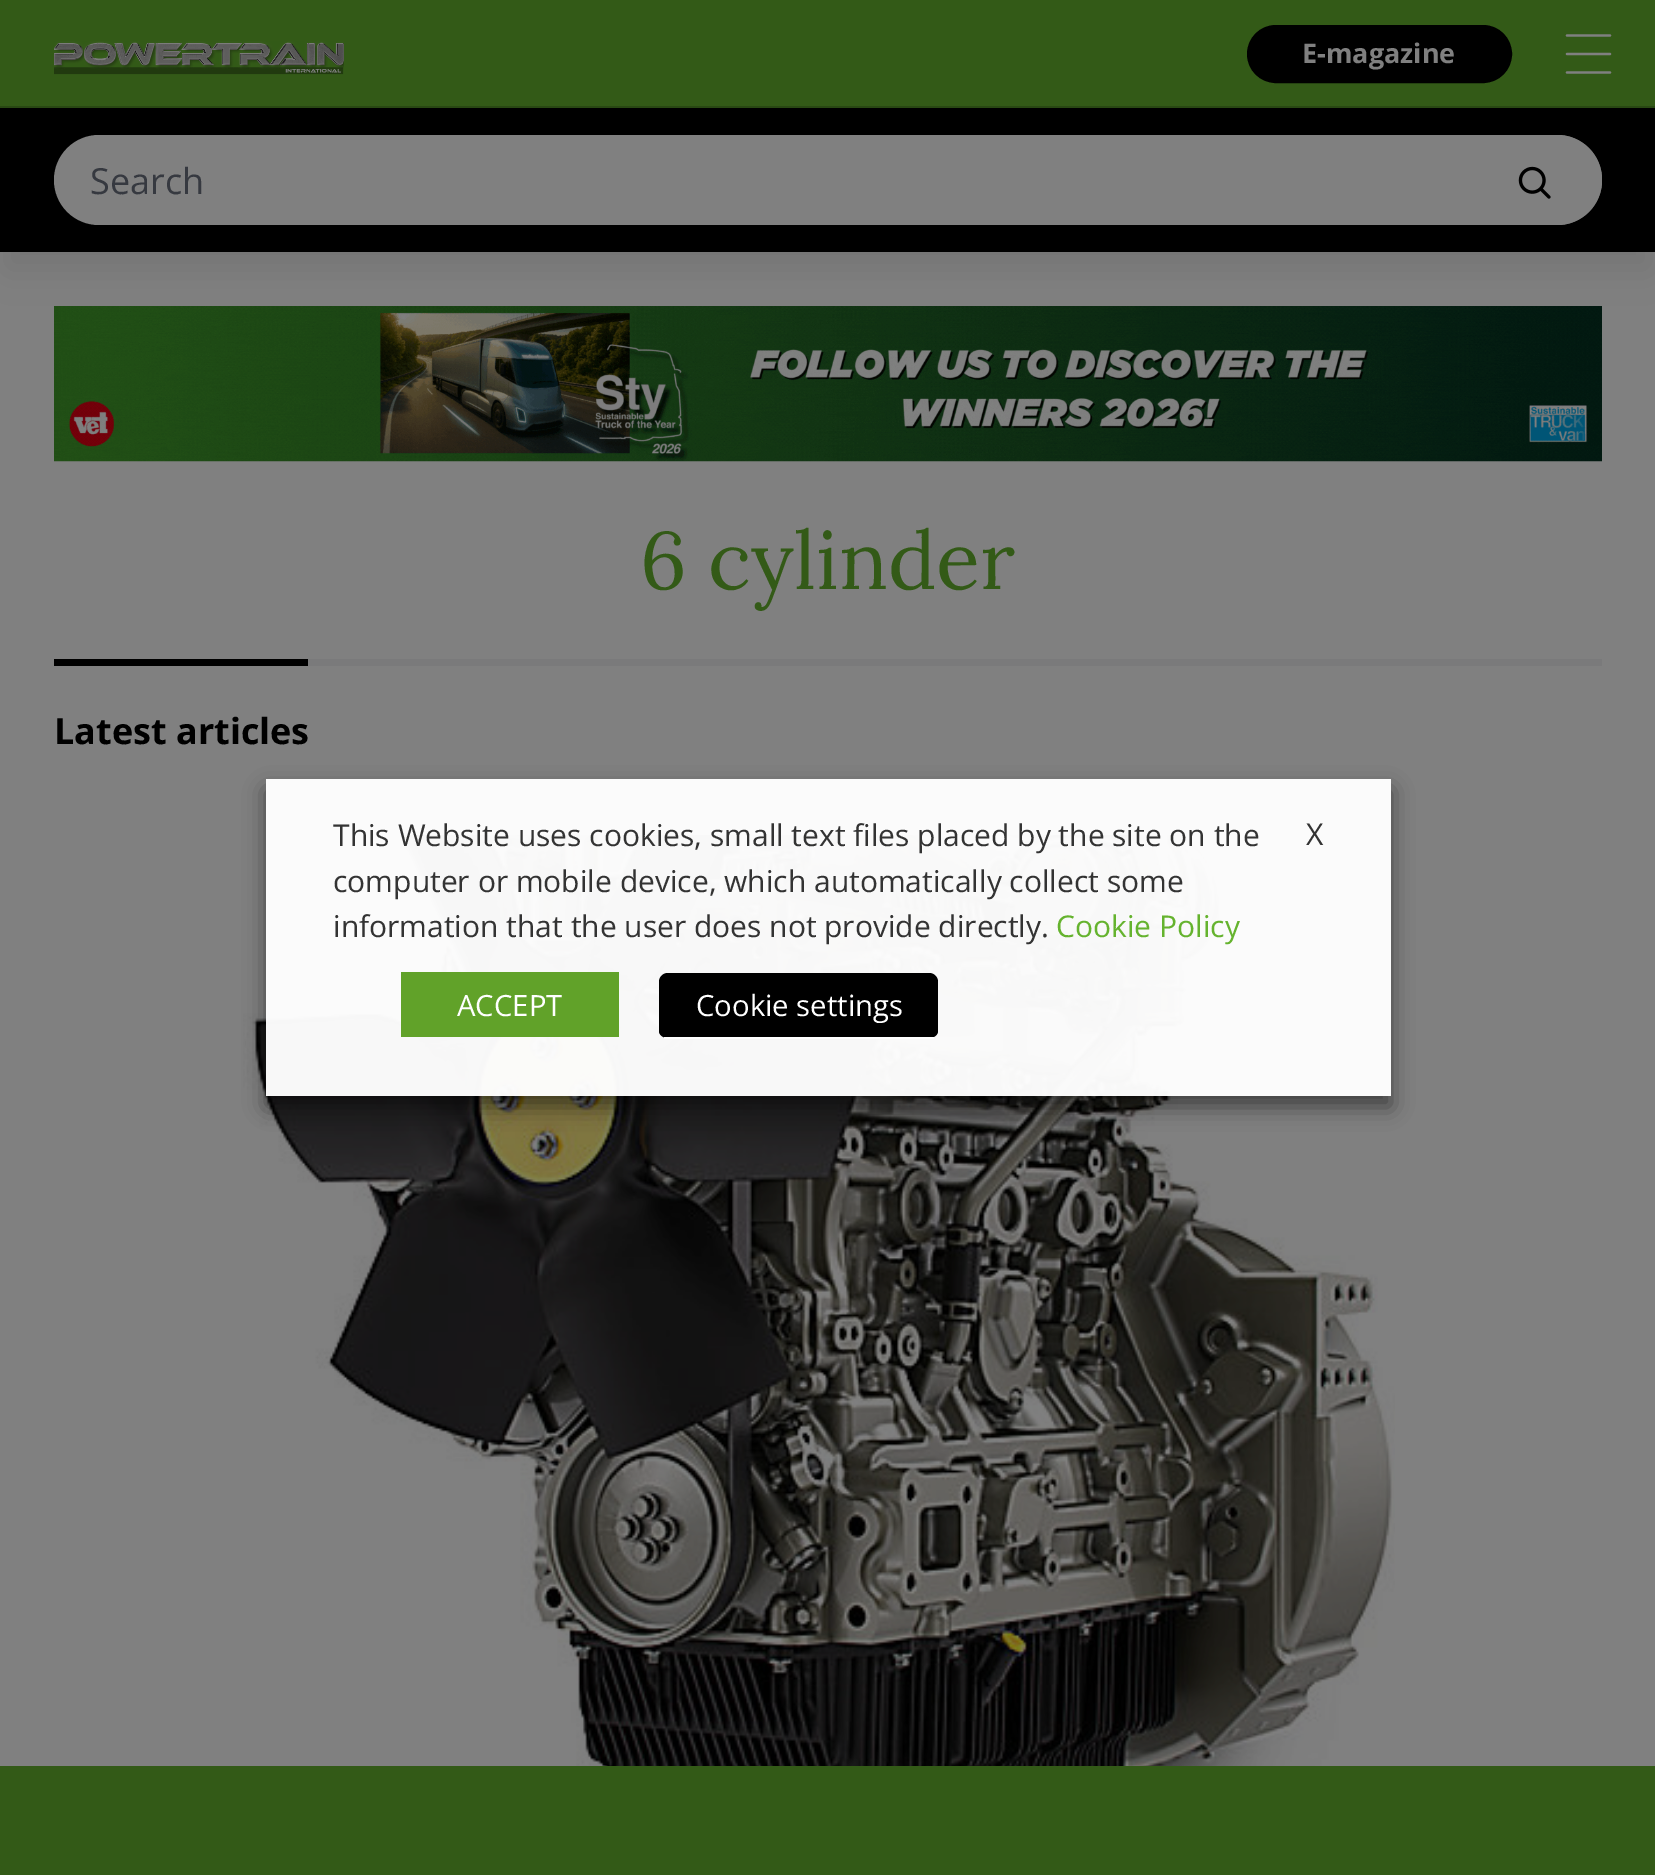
%!PS
<< /PageSize [1655 1875] /PageUsesTransparency true >> setpagedevice
/mt/moveto load def
/li/lineto load def
/ct/curveto load def
/cp/closepath load def
/fl/fill load def
/st/stroke load def
/gs/gsave load def
/gr/grestore load def
/lw/setlinewidth load def
/co { dup -16 bitshift 255 div exch dup -8 bitshift 255 and 255 div exch 255 and 255 div setrgbcolor } def
/fn { [ exch dup neg 0 0 3 -1 roll 0 0 ] selectfont } def
/tx { co fn moveto show } def
/bx { co rectfill } def
/al { dup .setfillconstantalpha .setstrokeconstantalpha } def
/rr { 5 dict begin { /r /h /w /y /x } { exch def } forall
  x r add y moveto x w add y 2 copy h add r arct x w add y h add x 1 index r arct
  x y h add x y r arct x y 2 copy exch w add exch r arct closepath end } def
/sh { 12 dict begin { /a /b /q /h /w /y /x } { exch def } forall gsave /was 0 def
  9 -2 -9 { dup b mul 4 div /e exch def 1 sub .425 mul 2.718 exch exp 1 add a .99 .min exch div /now exch def
    1 1 now sub 1 was sub div sub al /was now def
    w h .min e 2 mul add 0 gt { x e sub y e sub w e 2 mul add h e 2 mul add
      q e add b .6 mul add w h .min 2 div e add .min 0 .max rr fill } if } for grestore end } def
/im { 5 dict begin { /h /w /y /x /name } { exch def } forall
  gsave x y translate w h scale
  w h 8 [w 0 0 h 0 0] name (r) file false 3 colorimage grestore end } def
0 .pushpdf14devicefilter
0 1875 translate 1 -1 scale
4 setmiterlimit
0 0 1655 1875 16#808080 bx
16#000000 co
7 137 1642 131 0 17 .1 sh
0 0 1655 106 16#335A17 bx
0 106 1655 2 16#294813 bx
(media/1.raw) 54 41 290 34 im
16#000000 co
1248 26 263 56 28 rr gs fl gr
2 lw
st
16#808080 co
2.2 lw
1 setlinecap
1567 35.5 mt 1610 35.5 li 1567 54 mt 1610 54 li 1567 72.5 mt 1610 72.5 li st
0 108 1655 144 16#000000 bx
16#808080 co
54 135 1548 90 45 rr fl
1494 135 mt 1557 135 li 1582 135 1602 155 1602 180 ct 1602 205 1582 225 1557 225 ct 1494 225 li cp fl
(media/2.raw) 1518 166 33 33 im
(media/3.raw) 54 306 1548 156 im
308 659 1294 7 16#7A7A7B bx
54 659 254 7 16#000000 bx
(media/4.raw) 243 834 1152 932 im
0 1766 1655 109 16#335A17 bx
gs
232 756 mt 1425 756 li 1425 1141 li 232 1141 li cp 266 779 mt 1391 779 li 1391 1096 li 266 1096 li cp eoclip newpath
16#000000 co
266 790 1125 317 0 11 .5 sh
gr
0.97 al
266 779 1125 317 16#FFFFFF bx
1 al
401 972 218 65 16#61A229 bx
16#000000 co
668 973 mt 929 973 li 934 973 938 977 938 982 ct 938 1031 li 938 1035 934 1038 929 1038 ct 668 1038 li 663 1038 659 1035 659 1031 ct 659 982 li 659 977 663 973 668 973 ct cp fl
664 1037 270 2 16#FFFFFF bx
(E-magazine) 1302 63 /OpenSans-Bold 27 16#808080 tx
(Search) 90 194 /OpenSans-Regular 36 16#363940 tx
(6 cylinder) 640 589 /Lora-Regular 81 16#335A17 tx
(Latest articles) 54 744 /OpenSans-Bold 36 16#000000 tx
(This Website uses cookies, small text files placed by the site on the) 333 846 /OpenSans-Regular 30 16#333333 tx
(computer or mobile device, which automatically collect some) 333 892 /OpenSans-Regular 30 16#333333 tx
(information that the user does not provide directly.) 333 937 /OpenSans-Regular 30 16#333333 tx
(Cookie Policy) 1056 937 /OpenSans-Regular 30 16#65B32E tx
(ACCEPT) 457 1016 /OpenSans-Regular 29.25 16#FFFFFF tx
(Cookie settings) 696 1016 /OpenSans-Regular 29.25 16#FFFFFF tx
(X) 1306 845 /OpenSans-Regular 30 16#333333 tx
.poppdf14devicefilter showpage
